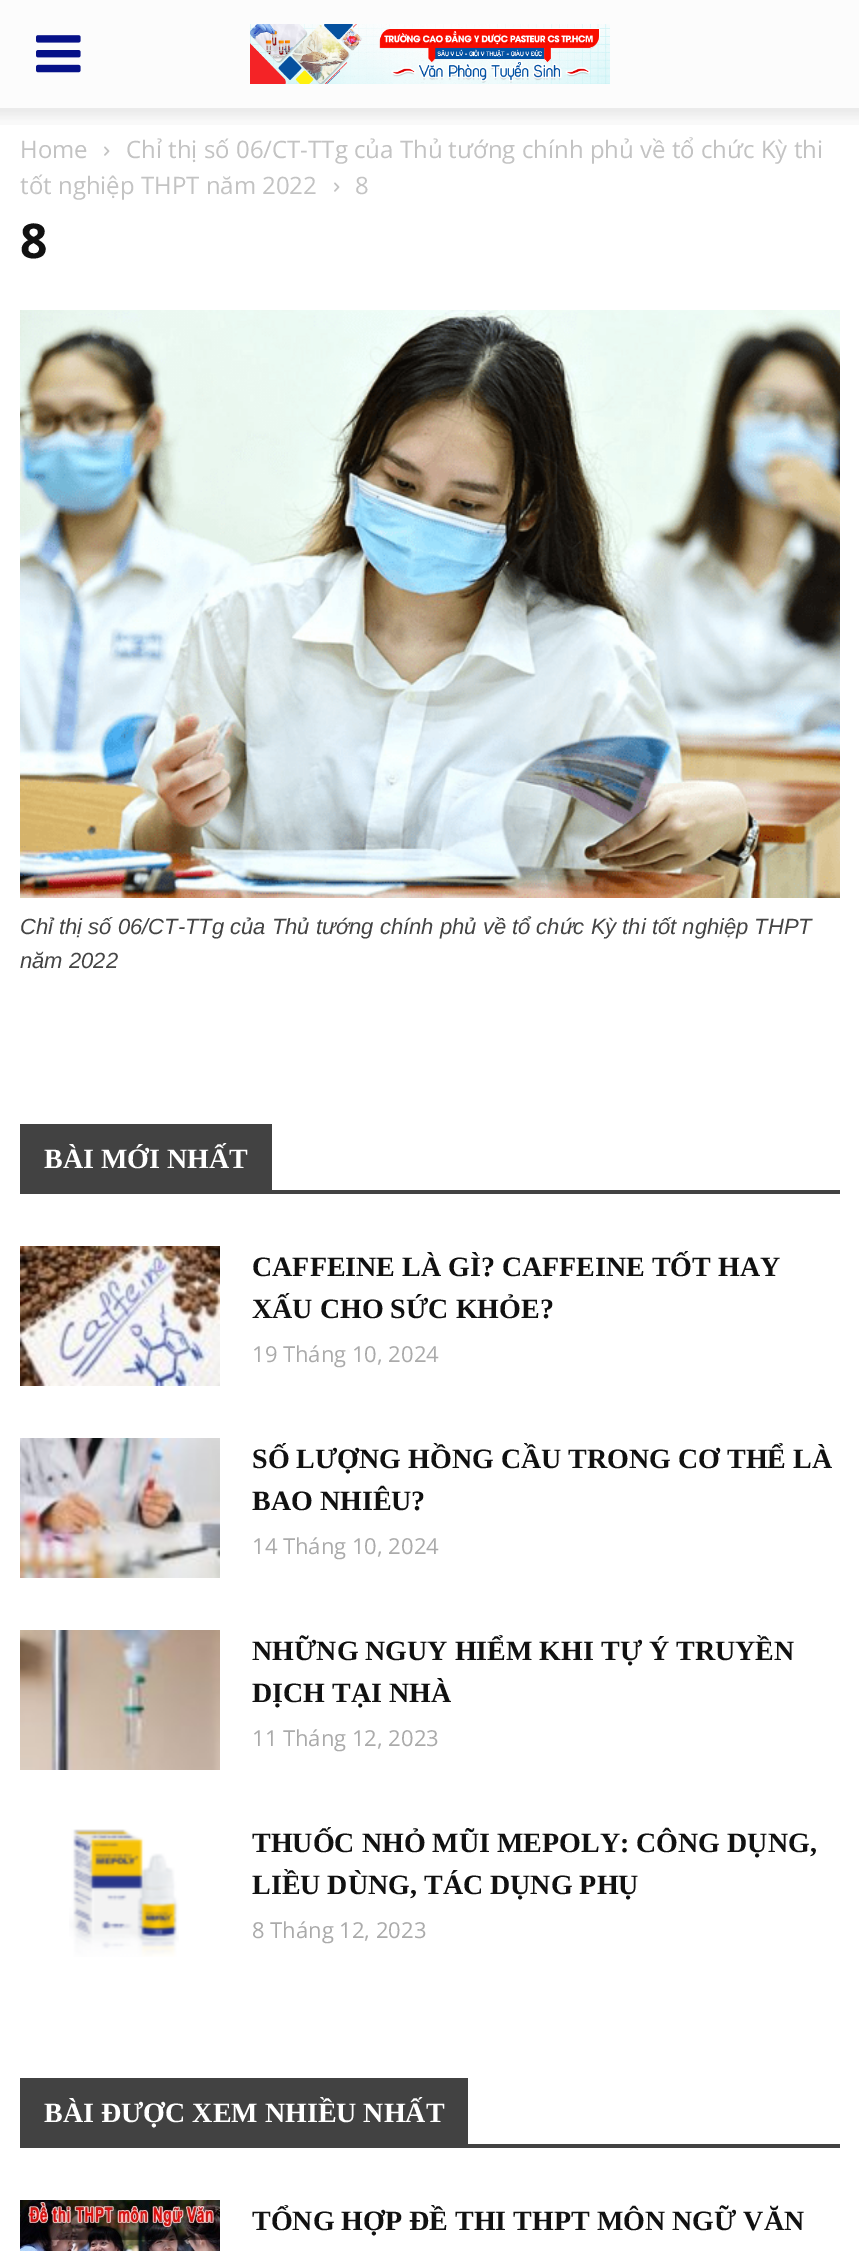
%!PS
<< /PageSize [859 2251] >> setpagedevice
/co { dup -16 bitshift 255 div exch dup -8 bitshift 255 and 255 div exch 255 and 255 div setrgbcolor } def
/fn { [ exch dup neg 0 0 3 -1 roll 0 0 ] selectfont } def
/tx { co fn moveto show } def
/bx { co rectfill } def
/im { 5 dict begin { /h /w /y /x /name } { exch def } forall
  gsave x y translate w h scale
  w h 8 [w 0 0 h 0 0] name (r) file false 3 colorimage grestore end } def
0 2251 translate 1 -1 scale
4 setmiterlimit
0 0 859 2251 16#FFFFFF bx
0 0 859 108 16#FCFCFC bx
(media/1.raw) 36 35 45 38 im
(media/2.raw) 250 24 360 60 im
(media/3.raw) 0 108 859 17 im
(media/4.raw) 104 146 6 10 im
(media/4.raw) 334 182 6 10 im
(media/5.raw) 20 310 820 588 im
20 1190 820 4 16#424242 bx
20 1124 252 66 16#424242 bx
(media/6.raw) 20 1246 200 140 im
(media/7.raw) 20 1438 200 140 im
(media/8.raw) 20 1630 200 140 im
(media/9.raw) 69 1829 110 128 im
20 2144 820 4 16#424242 bx
20 2078 448 66 16#424242 bx
(media/10.raw) 20 2200 200 51 im
(Home) 20 158 /OpenSans-Regular 24 16#C3C3C3 tx
(Chỉ thị số 06/CT-TTg của Thủ tướng chính phủ về tổ chức Kỳ thi) 126 158 /OpenSans-Regular 24 16#C3C3C3 tx
(tốt nghiệp THPT năm 2022) 20 194 /OpenSans-Regular 24 16#C3C3C3 tx
(8) 355 194 /OpenSans-Regular 24 16#C3C3C3 tx
(8) 20 258 /OpenSans-Bold 48 16#111111 tx
(Chỉ thị số 06/CT-TTg của Thủ tướng chính phủ về tổ chức Kỳ thi tốt nghiệp THPT) 20 934 /LiberationSans-Italic 22 16#444444 tx
(năm 2022) 20 968 /LiberationSans-Italic 22 16#444444 tx
(BÀI MỚI NHẤT) 44 1168 /LiberationSerif-Bold 28 16#FFFFFF tx
(CAFFEINE LÀ GÌ? CAFFEINE TỐT HAY) 252 1276 /LiberationSerif-Bold 28 16#111111 tx
(XẤU CHO SỨC KHỎE?) 252 1318 /LiberationSerif-Bold 28 16#111111 tx
(19 Tháng 10, 2024) 252 1362 /OpenSans-Regular 22 16#AAAAAA tx
(SỐ LƯỢNG HỒNG CẦU TRONG CƠ THỂ LÀ) 252 1468 /LiberationSerif-Bold 28 16#111111 tx
(BAO NHIÊU?) 252 1510 /LiberationSerif-Bold 28 16#111111 tx
(14 Tháng 10, 2024) 252 1554 /OpenSans-Regular 22 16#AAAAAA tx
(NHỮNG NGUY HIỂM KHI TỰ Ý TRUYỀN) 252 1660 /LiberationSerif-Bold 28 16#111111 tx
(DỊCH TẠI NHÀ) 252 1702 /LiberationSerif-Bold 28 16#111111 tx
(11 Tháng 12, 2023) 252 1746 /OpenSans-Regular 22 16#AAAAAA tx
(THUỐC NHỎ MŨI MEPOLY: CÔNG DỤNG,) 252 1852 /LiberationSerif-Bold 28 16#111111 tx
(LIỀU DÙNG, TÁC DỤNG PHỤ) 252 1894 /LiberationSerif-Bold 28 16#111111 tx
(8 Tháng 12, 2023) 252 1938 /OpenSans-Regular 22 16#AAAAAA tx
(BÀI ĐƯỢC XEM NHIỀU NHẤT) 44 2122 /LiberationSerif-Bold 28 16#FFFFFF tx
(TỔNG HỢP ĐỀ THI THPT MÔN NGỮ VĂN) 252 2230 /LiberationSerif-Bold 28 16#111111 tx
showpage
